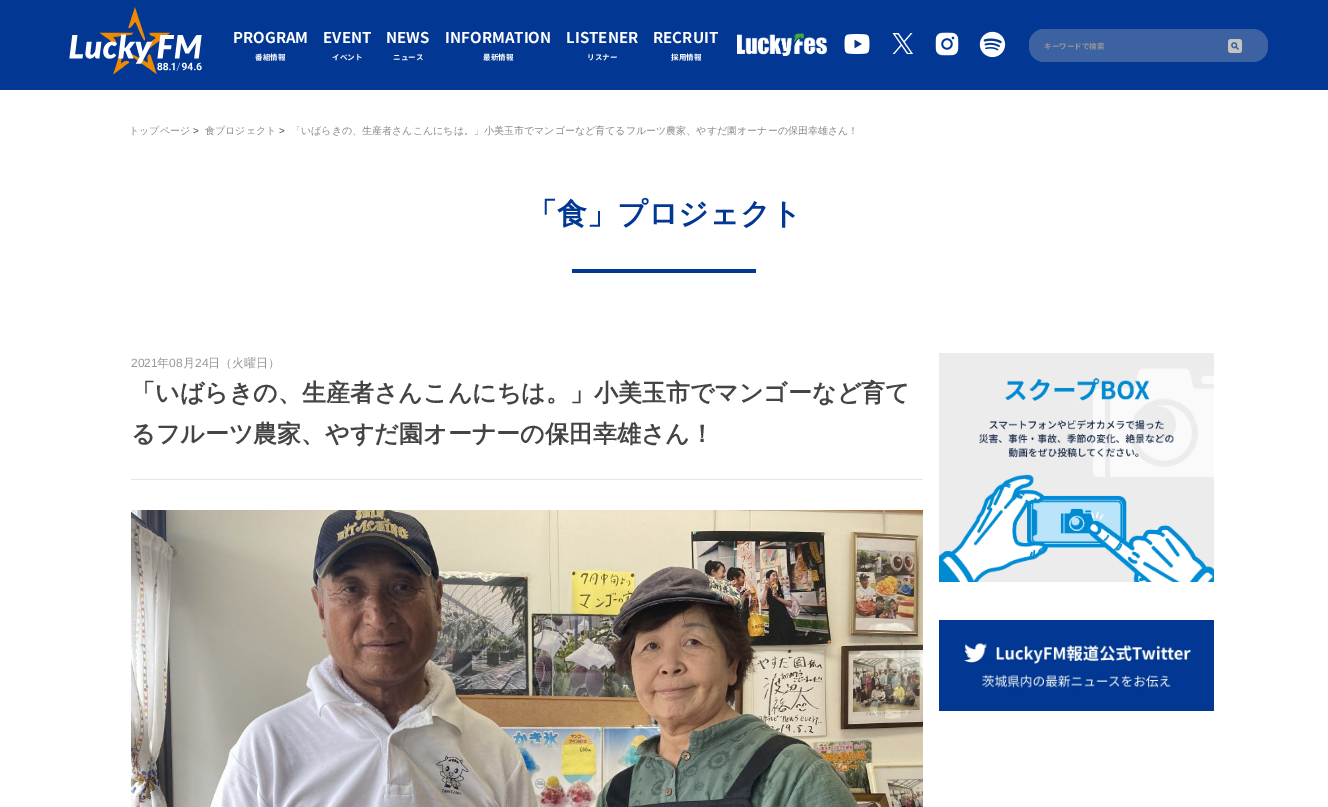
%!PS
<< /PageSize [1328 807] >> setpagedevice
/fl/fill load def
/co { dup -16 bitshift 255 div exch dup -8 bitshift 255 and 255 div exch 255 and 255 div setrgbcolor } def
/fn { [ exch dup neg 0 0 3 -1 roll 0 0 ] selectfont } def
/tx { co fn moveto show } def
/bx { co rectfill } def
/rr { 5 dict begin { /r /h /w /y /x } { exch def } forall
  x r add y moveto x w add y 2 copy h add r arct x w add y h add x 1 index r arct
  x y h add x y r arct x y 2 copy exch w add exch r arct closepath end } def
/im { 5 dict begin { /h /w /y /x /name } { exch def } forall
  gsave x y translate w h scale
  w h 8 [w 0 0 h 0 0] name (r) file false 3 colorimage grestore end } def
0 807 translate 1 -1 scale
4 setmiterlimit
0 0 1328 807 16#FFFFFF bx
0 0 1328 90 16#023893 bx
(media/1.raw) 69 7 133 68 im
(media/2.raw) 737 32 90 24 im
(media/3.raw) 844 34 26 20 im
(media/4.raw) 892 33 21 21 im
(media/5.raw) 935 32 24 24 im
(media/6.raw) 979 31 27 27 im
16#3C62A2 co
1029 29 239 33 15 rr fl
(media/7.raw) 1228 39 14 14 im
572 269 184 4 16#023893 bx
131 479 792 1 16#E6E6E6 bx
(media/8.raw) 131 510 792 297 im
(media/9.raw) 939 353 275 229 im
(media/10.raw) 939 620 275 91 im
(PROGRAM) 233 43 /NotoSansJP-Bold 15 16#FFFFFF tx
(番組情報) 255 60 /NotoSansJP-Bold 7.5 16#FFFFFF tx
(EVENT) 323 43 /NotoSansJP-Bold 15 16#FFFFFF tx
(イベント) 332 60 /NotoSansJP-Bold 7.5 16#FFFFFF tx
(NEWS) 386 43 /NotoSansJP-Bold 15 16#FFFFFF tx
(ニュース) 393 60 /NotoSansJP-Bold 7.5 16#FFFFFF tx
(INFORMATION) 445 43 /NotoSansJP-Bold 15 16#FFFFFF tx
(最新情報) 483 60 /NotoSansJP-Bold 7.5 16#FFFFFF tx
(LISTENER) 566 43 /NotoSansJP-Bold 15 16#FFFFFF tx
(リスナー) 587 60 /NotoSansJP-Bold 7.5 16#FFFFFF tx
(RECRUIT) 653 43 /NotoSansJP-Bold 15 16#FFFFFF tx
(採用情報) 671 60 /NotoSansJP-Bold 7.5 16#FFFFFF tx
(キーワードで検索) 1044 49 /NotoSansJP-Bold 7.5 16#989898 tx
(トップページ) 129 134 /WenQuanYiZenHei-Medium 10 16#888787 tx
(>) 193 134 /LiberationSans-Regular 10 16#444444 tx
(食プロジェクト) 205 134 /WenQuanYiZenHei-Medium 10 16#888787 tx
(>) 279 134 /LiberationSans-Regular 10 16#444444 tx
(「いばらきの、生産者さんこんにちは。」小美玉市でマンゴーなど育てるフルーツ農家、やすだ園オーナーの保田幸雄さん！) 291 134 /WenQuanYiZenHei-Medium 10 16#888787 tx
(「食」プロジェクト) 527 224 /WenQuanYiZenHei-Bold 30 16#023893 tx
(2021) 131 367 /LiberationSans-Regular 12 16#989898 tx
(年) 157 367 /WenQuanYiZenHei-Medium 12 16#989898 tx
(08) 169 367 /LiberationSans-Regular 12 16#989898 tx
(月) 183 367 /WenQuanYiZenHei-Medium 12 16#989898 tx
(24) 195 367 /LiberationSans-Regular 12 16#989898 tx
(日（火曜日）) 208 367 /WenQuanYiZenHei-Medium 12 16#989898 tx
(「いばらきの、生産者さんこんにちは。」小美玉市でマンゴーなど育て) 131 401 /WenQuanYiZenHei-Bold 24 16#444444 tx
(るフルーツ農家、やすだ園オーナーの保田幸雄さん！) 131 442 /WenQuanYiZenHei-Bold 24 16#444444 tx
showpage
